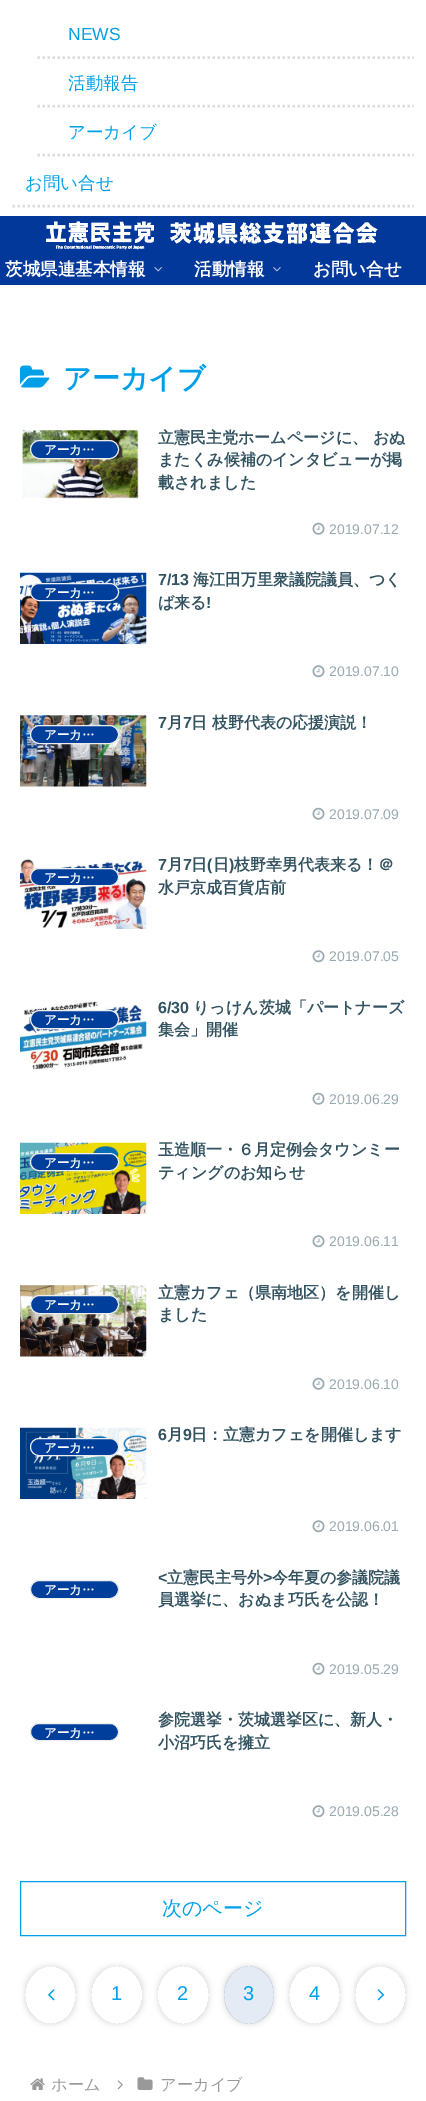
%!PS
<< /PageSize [426 2101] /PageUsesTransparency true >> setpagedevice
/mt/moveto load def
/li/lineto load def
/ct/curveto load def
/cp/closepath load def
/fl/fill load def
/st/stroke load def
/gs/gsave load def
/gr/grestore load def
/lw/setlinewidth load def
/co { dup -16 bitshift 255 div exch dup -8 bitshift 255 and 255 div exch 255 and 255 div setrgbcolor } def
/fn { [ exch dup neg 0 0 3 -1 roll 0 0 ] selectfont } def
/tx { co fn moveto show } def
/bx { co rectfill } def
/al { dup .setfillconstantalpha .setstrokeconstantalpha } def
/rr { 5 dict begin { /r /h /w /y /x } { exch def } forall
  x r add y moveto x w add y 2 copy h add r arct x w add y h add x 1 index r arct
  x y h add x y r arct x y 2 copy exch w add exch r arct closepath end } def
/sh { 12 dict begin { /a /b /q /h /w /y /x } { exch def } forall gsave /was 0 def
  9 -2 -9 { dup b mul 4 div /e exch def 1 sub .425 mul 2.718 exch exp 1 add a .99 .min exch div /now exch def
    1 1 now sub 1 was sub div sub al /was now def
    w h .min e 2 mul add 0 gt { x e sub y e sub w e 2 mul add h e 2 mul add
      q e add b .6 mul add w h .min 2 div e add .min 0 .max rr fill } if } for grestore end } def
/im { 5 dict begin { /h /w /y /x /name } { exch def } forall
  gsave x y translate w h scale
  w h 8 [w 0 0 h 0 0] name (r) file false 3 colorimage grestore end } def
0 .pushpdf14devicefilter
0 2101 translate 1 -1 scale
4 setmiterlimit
0 0 426 2101 16#FFFFFF bx
16#DDDDDD co
2.5 lw
[2.5 2.5] 0 setdash
37.5 57.5 mt 414 57.5 li st
37.5 106 mt 414 106 li st
37.5 155 mt 414 155 li st
12.5 206 mt 414 206 li st
0 216 426 69 16#03389B bx
(media/1.raw) 46 221 332 29 im
(media/2.raw) 154 267 8 5 im
(media/3.raw) 273 267 8 5 im
(media/4.raw) 20 365 30 23 im
(media/5.raw) 22 430 117 69 im
16#003E9B co
30.5 440.5 88 18 9 rr gs fl gr
16#EEEEEE co
1 lw
[] 0 setdash
st
(media/6.raw) 312 522 13 13 im
(media/7.raw) 20 572 127 72 im
16#003E9B co
30.5 583.5 88 17 8.5 rr gs fl gr
16#EEEEEE co
st
(media/8.raw) 312 665 13 13 im
(media/9.raw) 20 715 127 72 im
16#003E9B co
30.5 725.5 88 18 9 rr gs fl gr
16#EEEEEE co
st
(media/6.raw) 312 807 13 13 im
(media/10.raw) 20 858 127 71 im
16#003E9B co
30.5 868.5 88 17 8.5 rr gs fl gr
16#EEEEEE co
st
(media/8.raw) 312 950 13 13 im
(media/11.raw) 20 1000 127 70 im
16#003E9B co
30.5 1010.5 88 18 9 rr gs fl gr
16#EEEEEE co
st
(media/6.raw) 312 1092 13 13 im
(media/12.raw) 20 1142 127 72 im
16#003E9B co
30.5 1153.5 88 17 8.5 rr gs fl gr
16#EEEEEE co
st
(media/8.raw) 312 1235 13 13 im
(media/13.raw) 20 1285 127 72 im
16#003E9B co
30.5 1295.5 88 18 9 rr gs fl gr
16#EEEEEE co
st
(media/6.raw) 312 1377 13 13 im
(media/14.raw) 20 1427 127 72 im
16#003E9B co
30.5 1438.5 88 17 8.5 rr gs fl gr
16#EEEEEE co
st
(media/8.raw) 312 1520 13 13 im
16#003E9B co
30.5 1580.5 88 18 9 rr gs fl gr
16#EEEEEE co
st
(media/6.raw) 312 1662 13 13 im
16#003E9B co
30.5 1723.5 88 17 8.5 rr gs fl gr
16#EEEEEE co
st
(media/8.raw) 312 1805 13 13 im
16#00A0E9 co
20.5 1881.5 385 54 rectstroke
gs
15 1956 mt 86 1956 li 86 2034 li 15 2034 li cp 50.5 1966 mt 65 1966 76 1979 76 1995 ct 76 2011 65 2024 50.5 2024 ct 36.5 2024 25 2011 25 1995 ct 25 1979 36.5 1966 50.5 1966 ct cp eoclip newpath
16#000000 co
25 1966 51 58 25.5 3 .13 sh
gr
(media/15.raw) 48 1989 7 12 im
gs
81 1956 mt 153 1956 li 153 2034 li 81 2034 li cp 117 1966 mt 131 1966 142.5 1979 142.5 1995 ct 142.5 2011 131 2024 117 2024 ct 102.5 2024 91 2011 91 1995 ct 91 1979 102.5 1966 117 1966 ct cp eoclip newpath
16#000000 co
91 1966 52 58 26 3 .13 sh
gr
gs
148 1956 mt 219 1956 li 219 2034 li 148 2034 li cp 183 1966 mt 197.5 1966 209 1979 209 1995 ct 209 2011 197.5 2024 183 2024 ct 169 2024 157.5 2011 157.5 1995 ct 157.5 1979 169 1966 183 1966 ct cp eoclip newpath
16#000000 co
158 1966 51 58 25.5 3 .13 sh
gr
gs
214 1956 mt 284 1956 li 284 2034 li 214 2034 li cp 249 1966 mt 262.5 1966 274 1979 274 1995 ct 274 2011 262.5 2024 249 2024 ct 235 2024 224 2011 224 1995 ct 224 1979 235 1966 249 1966 ct cp eoclip newpath
16#000000 co
224 1966 50 58 25 3 .13 sh
gr
0.1 al
16#003E9B co
249 1966 mt 263 1966 274 1979 274 1995 ct 274 2011 263 2024 249 2024 ct 235 2024 224 2011 224 1995 ct 224 1979 235 1966 249 1966 ct cp fl
gs
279 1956 mt 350 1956 li 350 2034 li 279 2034 li cp 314.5 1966 mt 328.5 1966 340 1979 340 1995 ct 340 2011 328.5 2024 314.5 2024 ct 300 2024 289 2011 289 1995 ct 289 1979 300 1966 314.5 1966 ct cp eoclip newpath
1 al
16#000000 co
289 1966 51 58 25.5 3 .13 sh
gr
gs
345 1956 mt 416 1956 li 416 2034 li 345 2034 li cp 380.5 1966 mt 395 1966 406 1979 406 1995 ct 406 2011 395 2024 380.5 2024 ct 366.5 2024 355 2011 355 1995 ct 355 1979 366.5 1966 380.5 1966 ct cp eoclip newpath
1 al
16#000000 co
355 1966 51 58 25.5 3 .13 sh
gr
1 al
(media/16.raw) 377 1989 8 12 im
(media/17.raw) 30 2078 15 12 im
(media/18.raw) 117 2080 6 10 im
(media/19.raw) 137 2077 16 13 im
(NEWS) 68 40 /LiberationSans-Regular 17.5 16#00A0E9 tx
(活動報告) 68 89 /WenQuanYiZenHei-Medium 17.5 16#00A0E9 tx
(アーカイブ) 68 138 /WenQuanYiZenHei-Medium 17.5 16#00A0E9 tx
(お問い合せ) 25 189 /WenQuanYiZenHei-Medium 17.5 16#00A0E9 tx
(茨城県連基本情報) 5 275 /WenQuanYiZenHei-Bold 17.5 16#FFFFFF tx
(活動情報) 194 275 /WenQuanYiZenHei-Bold 17.5 16#FFFFFF tx
(お問い合せ) 313 275 /WenQuanYiZenHei-Bold 17.5 16#FFFFFF tx
(アーカイブ) 63 388 /WenQuanYiZenHei-Bold 28 16#00A0E9 tx
(アーカ…) 44 454 /WenQuanYiZenHei-Bold 12.5 16#FFFFFF tx
(立憲民主党ホームページに、 おぬ) 158 443 /WenQuanYiZenHei-Bold 16 16#335361 tx
(またくみ候補のインタビューが掲) 158 465 /WenQuanYiZenHei-Bold 16 16#335361 tx
(載されました) 158 488 /WenQuanYiZenHei-Bold 16 16#335361 tx
(2019.07.12) 329 534 /LiberationSans-Regular 14 16#99A9B0 tx
(アーカ…) 44 597 /WenQuanYiZenHei-Bold 12.5 16#FFFFFF tx
(7/13) 158 585 /LiberationSans-Bold 16 16#335361 tx
(海江田万里衆議院議員、つく) 193 585 /WenQuanYiZenHei-Bold 16 16#335361 tx
(ば来る) 158 608 /WenQuanYiZenHei-Bold 16 16#335361 tx
(!) 206 608 /LiberationSans-Bold 16 16#335361 tx
(2019.07.10) 329 676 /LiberationSans-Regular 14 16#99A9B0 tx
(アーカ…) 44 739 /WenQuanYiZenHei-Bold 12.5 16#FFFFFF tx
(7) 158 728 /LiberationSans-Bold 16 16#335361 tx
(月) 167 728 /WenQuanYiZenHei-Bold 16 16#335361 tx
(7) 183 728 /LiberationSans-Bold 16 16#335361 tx
(日 枝野代表の応援演説！) 191 728 /WenQuanYiZenHei-Bold 16 16#335361 tx
(2019.07.09) 329 819 /LiberationSans-Regular 14 16#99A9B0 tx
(アーカ…) 44 882 /WenQuanYiZenHei-Bold 12.5 16#FFFFFF tx
(7) 158 870 /LiberationSans-Bold 16 16#335361 tx
(月) 167 870 /WenQuanYiZenHei-Bold 16 16#335361 tx
(7) 183 870 /LiberationSans-Bold 16 16#335361 tx
(日) 191 870 /WenQuanYiZenHei-Bold 16 16#335361 tx
(\() 207 870 /LiberationSans-Bold 16 16#335361 tx
(日) 213 870 /WenQuanYiZenHei-Bold 16 16#335361 tx
(\)) 229 870 /LiberationSans-Bold 16 16#335361 tx
(枝野幸男代表来る！＠) 234 870 /WenQuanYiZenHei-Bold 16 16#335361 tx
(水戸京成百貨店前) 158 893 /WenQuanYiZenHei-Bold 16 16#335361 tx
(2019.07.05) 329 961 /LiberationSans-Regular 14 16#99A9B0 tx
(アーカ…) 44 1024 /WenQuanYiZenHei-Bold 12.5 16#FFFFFF tx
(6/30) 158 1013 /LiberationSans-Bold 16 16#335361 tx
(りっけん茨城「パートナーズ) 193 1013 /WenQuanYiZenHei-Bold 16 16#335361 tx
(集会」開催) 158 1035 /WenQuanYiZenHei-Bold 16 16#335361 tx
(2019.06.29) 329 1104 /LiberationSans-Regular 14 16#99A9B0 tx
(アーカ…) 44 1167 /WenQuanYiZenHei-Bold 12.5 16#FFFFFF tx
(玉造順一・６月定例会タウンミー) 158 1155 /WenQuanYiZenHei-Bold 16 16#335361 tx
(ティングのお知らせ) 158 1178 /WenQuanYiZenHei-Bold 16 16#335361 tx
(2019.06.11) 329 1246 /LiberationSans-Regular 14 16#99A9B0 tx
(アーカ…) 44 1309 /WenQuanYiZenHei-Bold 12.5 16#FFFFFF tx
(立憲カフェ（県南地区）を開催し) 158 1298 /WenQuanYiZenHei-Bold 16 16#335361 tx
(ました) 158 1320 /WenQuanYiZenHei-Bold 16 16#335361 tx
(2019.06.10) 329 1389 /LiberationSans-Regular 14 16#99A9B0 tx
(アーカ…) 44 1452 /WenQuanYiZenHei-Bold 12.5 16#FFFFFF tx
(6) 158 1440 /LiberationSans-Bold 16 16#335361 tx
(月) 167 1440 /WenQuanYiZenHei-Bold 16 16#335361 tx
(9) 183 1440 /LiberationSans-Bold 16 16#335361 tx
(日：立憲カフェを開催します) 191 1440 /WenQuanYiZenHei-Bold 16 16#335361 tx
(2019.06.01) 329 1531 /LiberationSans-Regular 14 16#99A9B0 tx
(アーカ…) 44 1594 /WenQuanYiZenHei-Bold 12.5 16#FFFFFF tx
(<) 158 1583 /LiberationSans-Bold 16 16#335361 tx
(立憲民主号外) 167 1583 /WenQuanYiZenHei-Bold 16 16#335361 tx
(>) 263 1583 /LiberationSans-Bold 16 16#335361 tx
(今年夏の参議院議) 272 1583 /WenQuanYiZenHei-Bold 16 16#335361 tx
(員選挙に、おぬま巧氏を公認！) 158 1605 /WenQuanYiZenHei-Bold 16 16#335361 tx
(2019.05.29) 329 1674 /LiberationSans-Regular 14 16#99A9B0 tx
(アーカ…) 44 1737 /WenQuanYiZenHei-Bold 12.5 16#FFFFFF tx
(参院選挙・茨城選挙区に、新人・) 158 1725 /WenQuanYiZenHei-Bold 16 16#335361 tx
(小沼巧氏を擁立) 158 1748 /WenQuanYiZenHei-Bold 16 16#335361 tx
(2019.05.28) 329 1816 /LiberationSans-Regular 14 16#99A9B0 tx
(次のページ) 162 1915 /WenQuanYiZenHei-Medium 20 16#00A0E9 tx
(1) 111 2000 /LiberationSans-Regular 20 16#00A0E9 tx
(2) 177 2000 /LiberationSans-Regular 20 16#00A0E9 tx
(3) 243 2000 /LiberationSans-Regular 20 16#00A0E9 tx
(4) 309 2000 /LiberationSans-Regular 20 16#00A0E9 tx
(ホーム) 51 2090 /WenQuanYiZenHei-Medium 16.25 16#999999 tx
(アーカイブ) 160 2090 /WenQuanYiZenHei-Medium 16.25 16#999999 tx
.poppdf14devicefilter showpage
